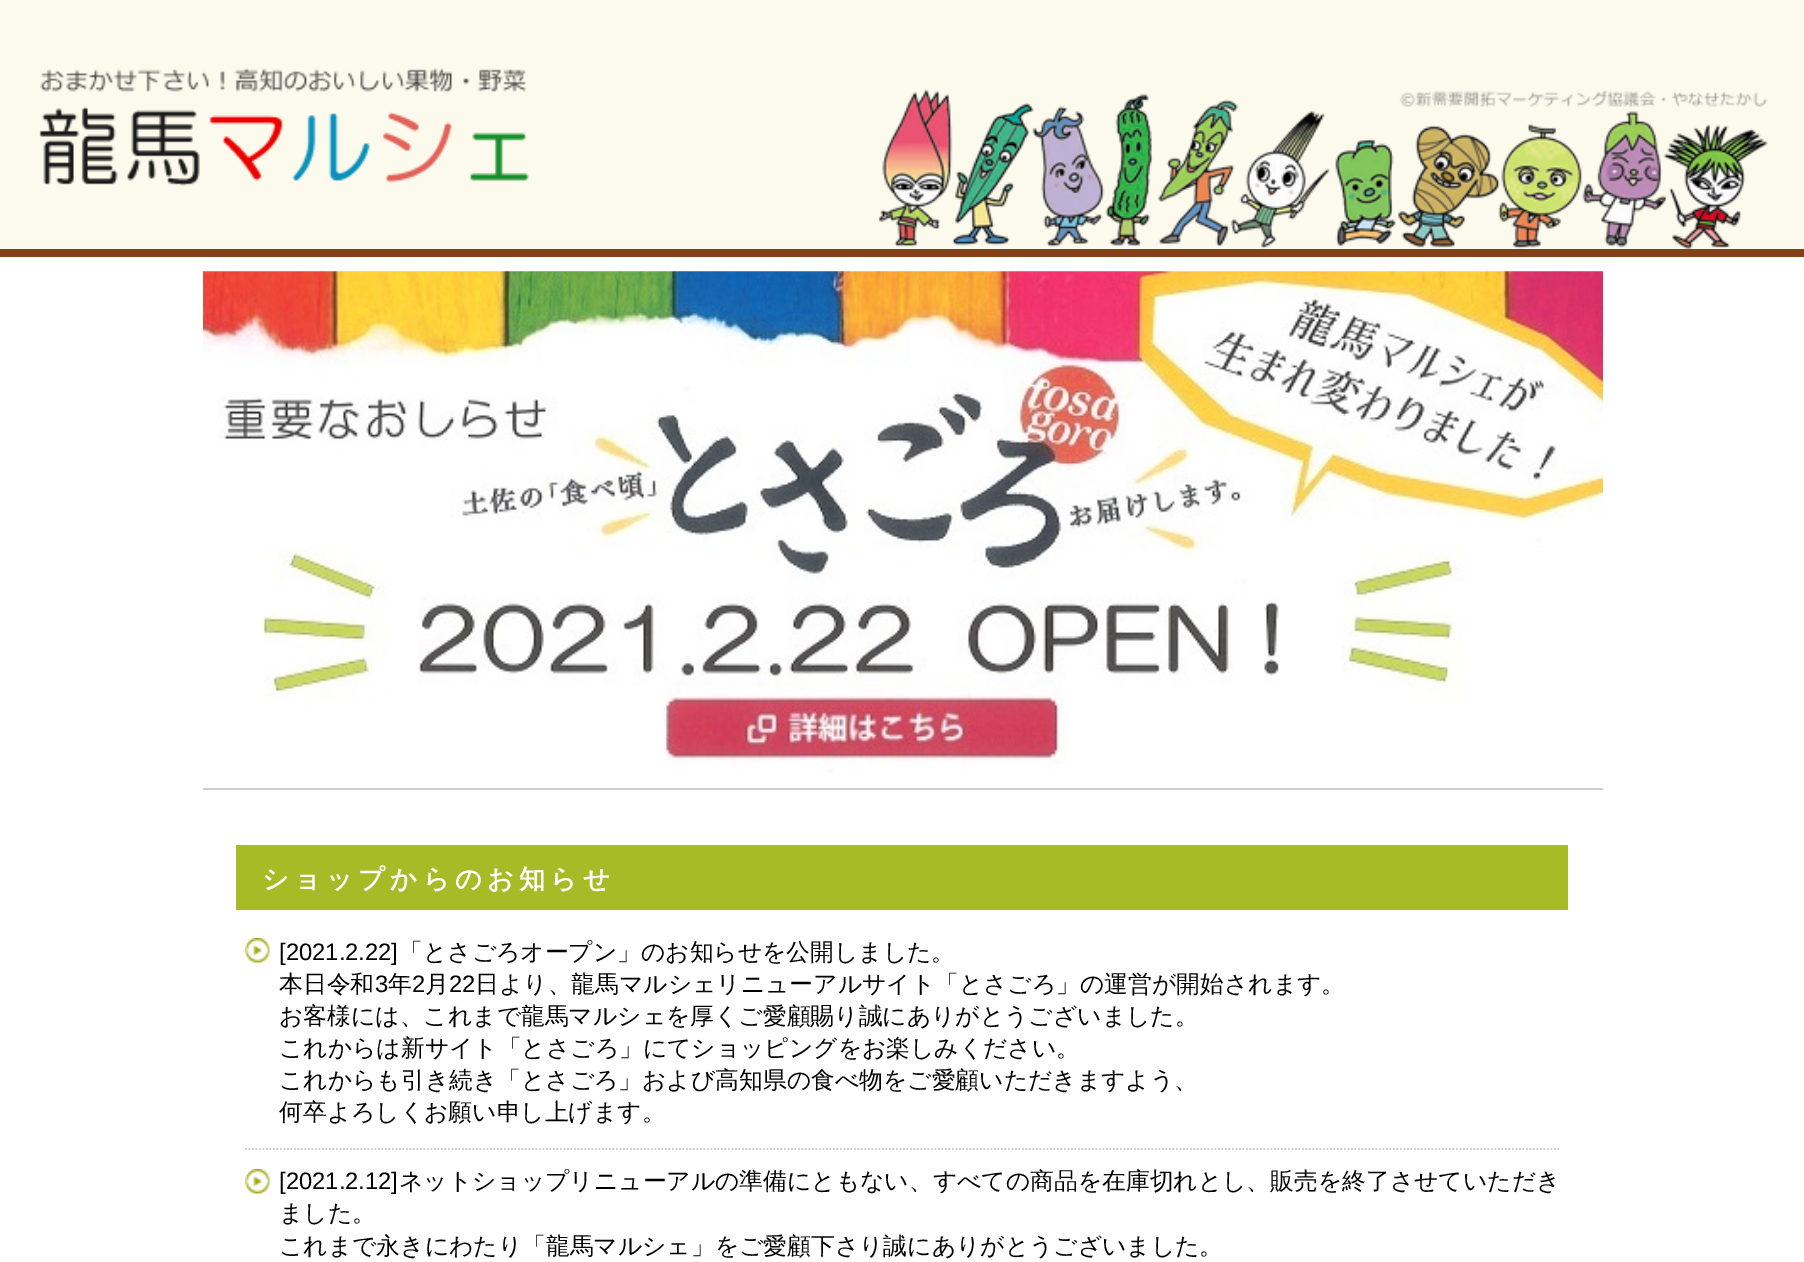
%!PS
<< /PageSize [1804 1262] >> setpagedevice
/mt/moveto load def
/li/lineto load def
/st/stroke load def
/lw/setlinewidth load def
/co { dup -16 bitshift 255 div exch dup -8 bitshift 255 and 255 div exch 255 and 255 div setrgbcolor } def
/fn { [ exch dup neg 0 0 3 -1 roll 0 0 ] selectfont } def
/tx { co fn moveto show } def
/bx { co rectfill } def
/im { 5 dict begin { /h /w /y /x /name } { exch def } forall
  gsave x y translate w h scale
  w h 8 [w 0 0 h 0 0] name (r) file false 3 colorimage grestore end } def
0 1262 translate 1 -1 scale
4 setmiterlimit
0 0 1804 1262 16#FFFFFF bx
0 0 1804 249 16#FBFAEC bx
(media/1.raw) 878 89 890 160 im
0 249 1804 8 16#824119 bx
(media/2.raw) 39 68 490 118 im
203 788 1400 2 16#CCCCCC bx
(media/3.raw) 203 271 1400 502 im
236 845 1332 65 16#A6BB26 bx
(media/4.raw) 245 938 25 25 im
16#CCCCCC co
1.8 lw
[1.75 1.75] 0 setdash
245 1149 mt 1559 1149 li st
(media/4.raw) 245 1169 25 25 im
/WenQuanYiZenHei-Bold 26.25 fn
16#FFFFFF co
262 888 mt 5.25 0 (ショップからのお知らせ) ashow
([2021.2.22]) 279 960 /LiberationSans-Regular 23.8 16#000000 tx
(「とさごろオープン」のお知らせを公開しました。) 399 960 /WenQuanYiZenHei-Medium 23.8 16#000000 tx
(本日令和) 279 992 /WenQuanYiZenHei-Medium 23.8 16#000000 tx
(3) 375 992 /LiberationSans-Regular 23.8 16#000000 tx
(年) 388 992 /WenQuanYiZenHei-Medium 23.8 16#000000 tx
(2) 412 992 /LiberationSans-Regular 23.8 16#000000 tx
(月) 425 992 /WenQuanYiZenHei-Medium 23.8 16#000000 tx
(22) 449 992 /LiberationSans-Regular 23.8 16#000000 tx
(日より、龍馬マルシェリニューアルサイト「とさごろ」の運営が開始されます。) 475 992 /WenQuanYiZenHei-Medium 23.8 16#000000 tx
(お客様には、これまで龍馬マルシェを厚くご愛顧賜り誠にありがとうございました。) 279 1024 /WenQuanYiZenHei-Medium 23.8 16#000000 tx
(これからは新サイト「とさごろ」にてショッピングをお楽しみください。) 279 1056 /WenQuanYiZenHei-Medium 23.8 16#000000 tx
(これからも引き続き「とさごろ」および高知県の食べ物をご愛顧いただきますよう、) 279 1088 /WenQuanYiZenHei-Medium 23.8 16#000000 tx
(何卒よろしくお願い申し上げます。) 279 1120 /WenQuanYiZenHei-Medium 23.8 16#000000 tx
([2021.2.12]) 279 1189 /LiberationSans-Regular 23.8 16#000000 tx
(ネットショップリニューアルの準備にともない、すべての商品を在庫切れとし、販売を終了させていただき) 399 1189 /WenQuanYiZenHei-Medium 23.8 16#000000 tx
(ました。) 279 1221 /WenQuanYiZenHei-Medium 23.8 16#000000 tx
(これまで永きにわたり「龍馬マルシェ」をご愛顧下さり誠にありがとうございました。) 279 1254 /WenQuanYiZenHei-Medium 23.8 16#000000 tx
showpage
